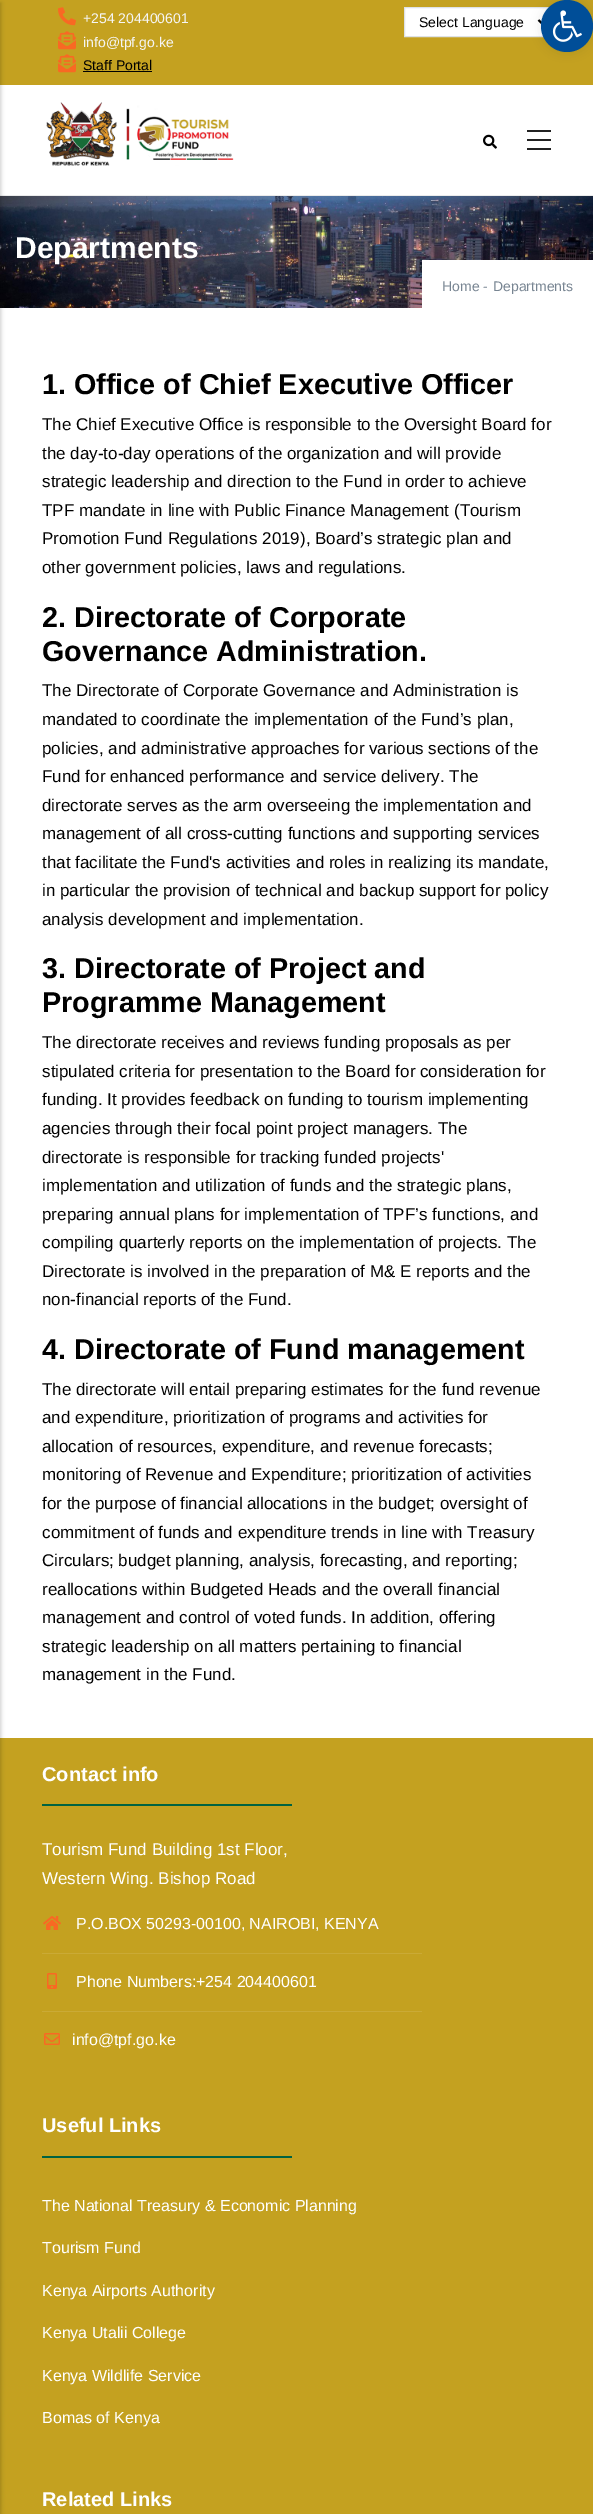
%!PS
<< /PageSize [593 2514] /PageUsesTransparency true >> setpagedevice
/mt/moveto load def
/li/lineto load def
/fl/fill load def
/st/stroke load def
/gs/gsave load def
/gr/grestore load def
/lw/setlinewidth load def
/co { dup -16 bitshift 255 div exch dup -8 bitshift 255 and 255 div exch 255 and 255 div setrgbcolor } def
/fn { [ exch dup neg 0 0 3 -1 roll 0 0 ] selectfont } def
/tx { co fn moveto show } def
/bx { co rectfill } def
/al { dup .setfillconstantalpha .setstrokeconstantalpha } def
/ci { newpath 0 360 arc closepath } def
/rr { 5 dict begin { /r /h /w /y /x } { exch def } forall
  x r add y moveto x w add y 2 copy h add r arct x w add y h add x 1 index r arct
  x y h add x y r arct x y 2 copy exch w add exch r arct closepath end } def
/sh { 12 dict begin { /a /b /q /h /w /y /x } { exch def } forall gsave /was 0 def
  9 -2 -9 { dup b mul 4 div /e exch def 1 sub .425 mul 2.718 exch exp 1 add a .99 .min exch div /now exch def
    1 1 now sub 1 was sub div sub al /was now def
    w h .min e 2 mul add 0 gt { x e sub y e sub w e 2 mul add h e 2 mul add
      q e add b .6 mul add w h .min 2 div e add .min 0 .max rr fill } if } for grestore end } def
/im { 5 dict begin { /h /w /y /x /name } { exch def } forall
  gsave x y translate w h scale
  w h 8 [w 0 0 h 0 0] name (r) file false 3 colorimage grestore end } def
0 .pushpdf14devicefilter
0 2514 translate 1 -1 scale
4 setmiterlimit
0 0 593 2514 16#FFFFFF bx
(media/6.raw) 0 196 593 112 im
gs
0 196 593 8 rectclip
16#000000 co
-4 -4 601 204 0 5 .1 sh
gr
0 0 593 85 16#C4A120 bx
405 8 144 28 16#FFFFFF bx
16#DEE2E6 co
404.5 7.5 147 29 rectstroke
16#000000 co
2 lw
538.5 20 mt 542.5 24 li 546.5 20 li st
541 0 52 52 26 5 .1 sh
16#004E98 co
567 26 26 ci fl
(media/1.raw) 552 10 30 32 im
0 195 593 1 16#EBEBEB bx
0 1738 593 776 16#C4A120 bx
16#000000 co
-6 3 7 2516 0 2 .2 sh
(media/2.raw) 483 134 14 15 im
527 130 24 2 16#222222 bx
527 139 24 2 16#222222 bx
527 148 24 2 16#222222 bx
(media/3.raw) 46 102 188 64 im
(media/4.raw) 58 7 18 19 im
(media/5.raw) 58 31 18 19 im
(media/5.raw) 58 54 18 19 im
83 71 69 1 16#000000 bx
422 260 171 48 16#FFFFFF bx
42 1804 250 2 16#006341 bx
42 1953 380 1 16#CAAA36 bx
(media/7.raw) 43 1916 18 14 im
42 2011 380 1 16#CAAA36 bx
(media/8.raw) 47 1973 10 16 im
(media/9.raw) 44 2033 16 12 im
42 2156 250 2 16#006341 bx
(+254 204400601) 83 23 /LiberationSans-Regular 14 16#F5F5F5 tx
(info@tpf.go.ke) 83 47 /LiberationSans-Regular 14 16#F5F5F5 tx
(Staff Portal) 83 70 /LiberationSans-Regular 14 16#000000 tx
(Select Language) 419 27 /LiberationSans-Regular 14 16#000000 tx
(Departments) 15 258 /LiberationSans-Bold 30 16#FFFFFF tx
(Home -) 442 291 /LiberationSans-Regular 14 16#788592 tx
(Departments) 493 291 /LiberationSans-Regular 14 16#788592 tx
(1. Office of Chief Executive Officer) 42 394 /LiberationSans-Bold 28.75 16#000000 tx
(The Chief Executive Office is responsible to the Oversight Board for) 42 430 /LiberationSans-Regular 17 16#000000 tx
(the day-to-day operations of the organization and will provide) 42 459 /LiberationSans-Regular 17 16#000000 tx
(strategic leadership and direction to the Fund in order to achieve) 42 487 /LiberationSans-Regular 17 16#000000 tx
(TPF mandate in line with Public Finance Management \(Tourism) 42 516 /LiberationSans-Regular 17 16#000000 tx
(Promotion Fund Regulations 2019\), Board’s strategic plan and) 42 544 /LiberationSans-Regular 17 16#000000 tx
(other government policies, laws and regulations.) 42 573 /LiberationSans-Regular 17 16#000000 tx
(2. Directorate of Corporate) 42 627 /LiberationSans-Bold 28.75 16#000000 tx
(Governance Administration.) 42 661 /LiberationSans-Bold 28.75 16#000000 tx
(The Directorate of Corporate Governance and Administration is) 42 696 /LiberationSans-Regular 17 16#000000 tx
(mandated to coordinate the implementation of the Fund’s plan,) 42 725 /LiberationSans-Regular 17 16#000000 tx
(policies, and administrative approaches for various sections of the) 42 754 /LiberationSans-Regular 17 16#000000 tx
(Fund for enhanced performance and service delivery. The) 42 782 /LiberationSans-Regular 17 16#000000 tx
(directorate serves as the arm overseeing the implementation and) 42 811 /LiberationSans-Regular 17 16#000000 tx
(management of all cross-cutting functions and supporting services) 42 839 /LiberationSans-Regular 17 16#000000 tx
(that facilitate the Fund's activities and roles in realizing its mandate,) 42 868 /LiberationSans-Regular 17 16#000000 tx
(in particular the provision of technical and backup support for policy) 42 896 /LiberationSans-Regular 17 16#000000 tx
(analysis development and implementation.) 42 925 /LiberationSans-Regular 17 16#000000 tx
(3. Directorate of Project and) 42 978 /LiberationSans-Bold 28.75 16#000000 tx
(Programme Management) 42 1012 /LiberationSans-Bold 28.75 16#000000 tx
(The directorate receives and reviews funding proposals as per) 42 1048 /LiberationSans-Regular 17 16#000000 tx
(stipulated criteria for presentation to the Board for consideration for) 42 1077 /LiberationSans-Regular 17 16#000000 tx
(funding. It provides feedback on funding to tourism implementing) 42 1105 /LiberationSans-Regular 17 16#000000 tx
(agencies through their focal point project managers. The) 42 1134 /LiberationSans-Regular 17 16#000000 tx
(directorate is responsible for tracking funded projects') 42 1163 /LiberationSans-Regular 17 16#000000 tx
(implementation and utilization of funds and the strategic plans,) 42 1191 /LiberationSans-Regular 17 16#000000 tx
(preparing annual plans for implementation of TPF’s functions, and) 42 1220 /LiberationSans-Regular 17 16#000000 tx
(compiling quarterly reports on the implementation of projects. The) 42 1248 /LiberationSans-Regular 17 16#000000 tx
(Directorate is involved in the preparation of M& E reports and the) 42 1277 /LiberationSans-Regular 17 16#000000 tx
(non-financial reports of the Fund.) 42 1305 /LiberationSans-Regular 17 16#000000 tx
(4. Directorate of Fund management) 42 1359 /LiberationSans-Bold 28.75 16#000000 tx
(The directorate will entail preparing estimates for the fund revenue) 42 1395 /LiberationSans-Regular 17 16#000000 tx
(and expenditure, prioritization of programs and activities for) 42 1423 /LiberationSans-Regular 17 16#000000 tx
(allocation of resources, expenditure, and revenue forecasts;) 42 1452 /LiberationSans-Regular 17 16#000000 tx
(monitoring of Revenue and Expenditure; prioritization of activities) 42 1480 /LiberationSans-Regular 17 16#000000 tx
(for the purpose of financial allocations in the budget; oversight of) 42 1509 /LiberationSans-Regular 17 16#000000 tx
(commitment of funds and expenditure trends in line with Treasury) 42 1538 /LiberationSans-Regular 17 16#000000 tx
(Circulars; budget planning, analysis, forecasting, and reporting;) 42 1566 /LiberationSans-Regular 17 16#000000 tx
(reallocations within Budgeted Heads and the overall financial) 42 1595 /LiberationSans-Regular 17 16#000000 tx
(management and control of voted funds. In addition, offering) 42 1623 /LiberationSans-Regular 17 16#000000 tx
(strategic leadership on all matters pertaining to financial) 42 1652 /LiberationSans-Regular 17 16#000000 tx
(management in the Fund.) 42 1680 /LiberationSans-Regular 17 16#000000 tx
(Contact info) 42 1781 /LiberationSans-Bold 20 16#FFFFFF tx
(Tourism Fund Building 1st Floor,) 42 1855 /LiberationSans-Regular 17 16#FFFFFF tx
(Western Wing. Bishop Road) 42 1884 /LiberationSans-Regular 17 16#FFFFFF tx
(P.O.BOX 50293-00100, NAIROBI, KENYA) 76 1929 /LiberationSans-Regular 16 16#FFFFFF tx
(Phone Numbers:+254 204400601) 76 1987 /LiberationSans-Regular 16 16#FFFFFF tx
(info@tpf.go.ke) 72 2045 /LiberationSans-Regular 16 16#FFFFFF tx
(Useful Links) 42 2132 /LiberationSans-Bold 20 16#FFFFFF tx
(The National Treasury & Economic Planning) 42 2211 /LiberationSans-Regular 16 16#FFFFFF tx
(Tourism Fund) 42 2253 /LiberationSans-Regular 16 16#FFFFFF tx
(Kenya Airports Authority) 42 2296 /LiberationSans-Regular 16 16#FFFFFF tx
(Kenya Utalii College) 42 2338 /LiberationSans-Regular 16 16#FFFFFF tx
(Kenya Wildlife Service) 42 2381 /LiberationSans-Regular 16 16#FFFFFF tx
(Bomas of Kenya) 42 2423 /LiberationSans-Regular 16 16#FFFFFF tx
(Related Links) 42 2506 /LiberationSans-Bold 20 16#FFFFFF tx
.poppdf14devicefilter showpage
